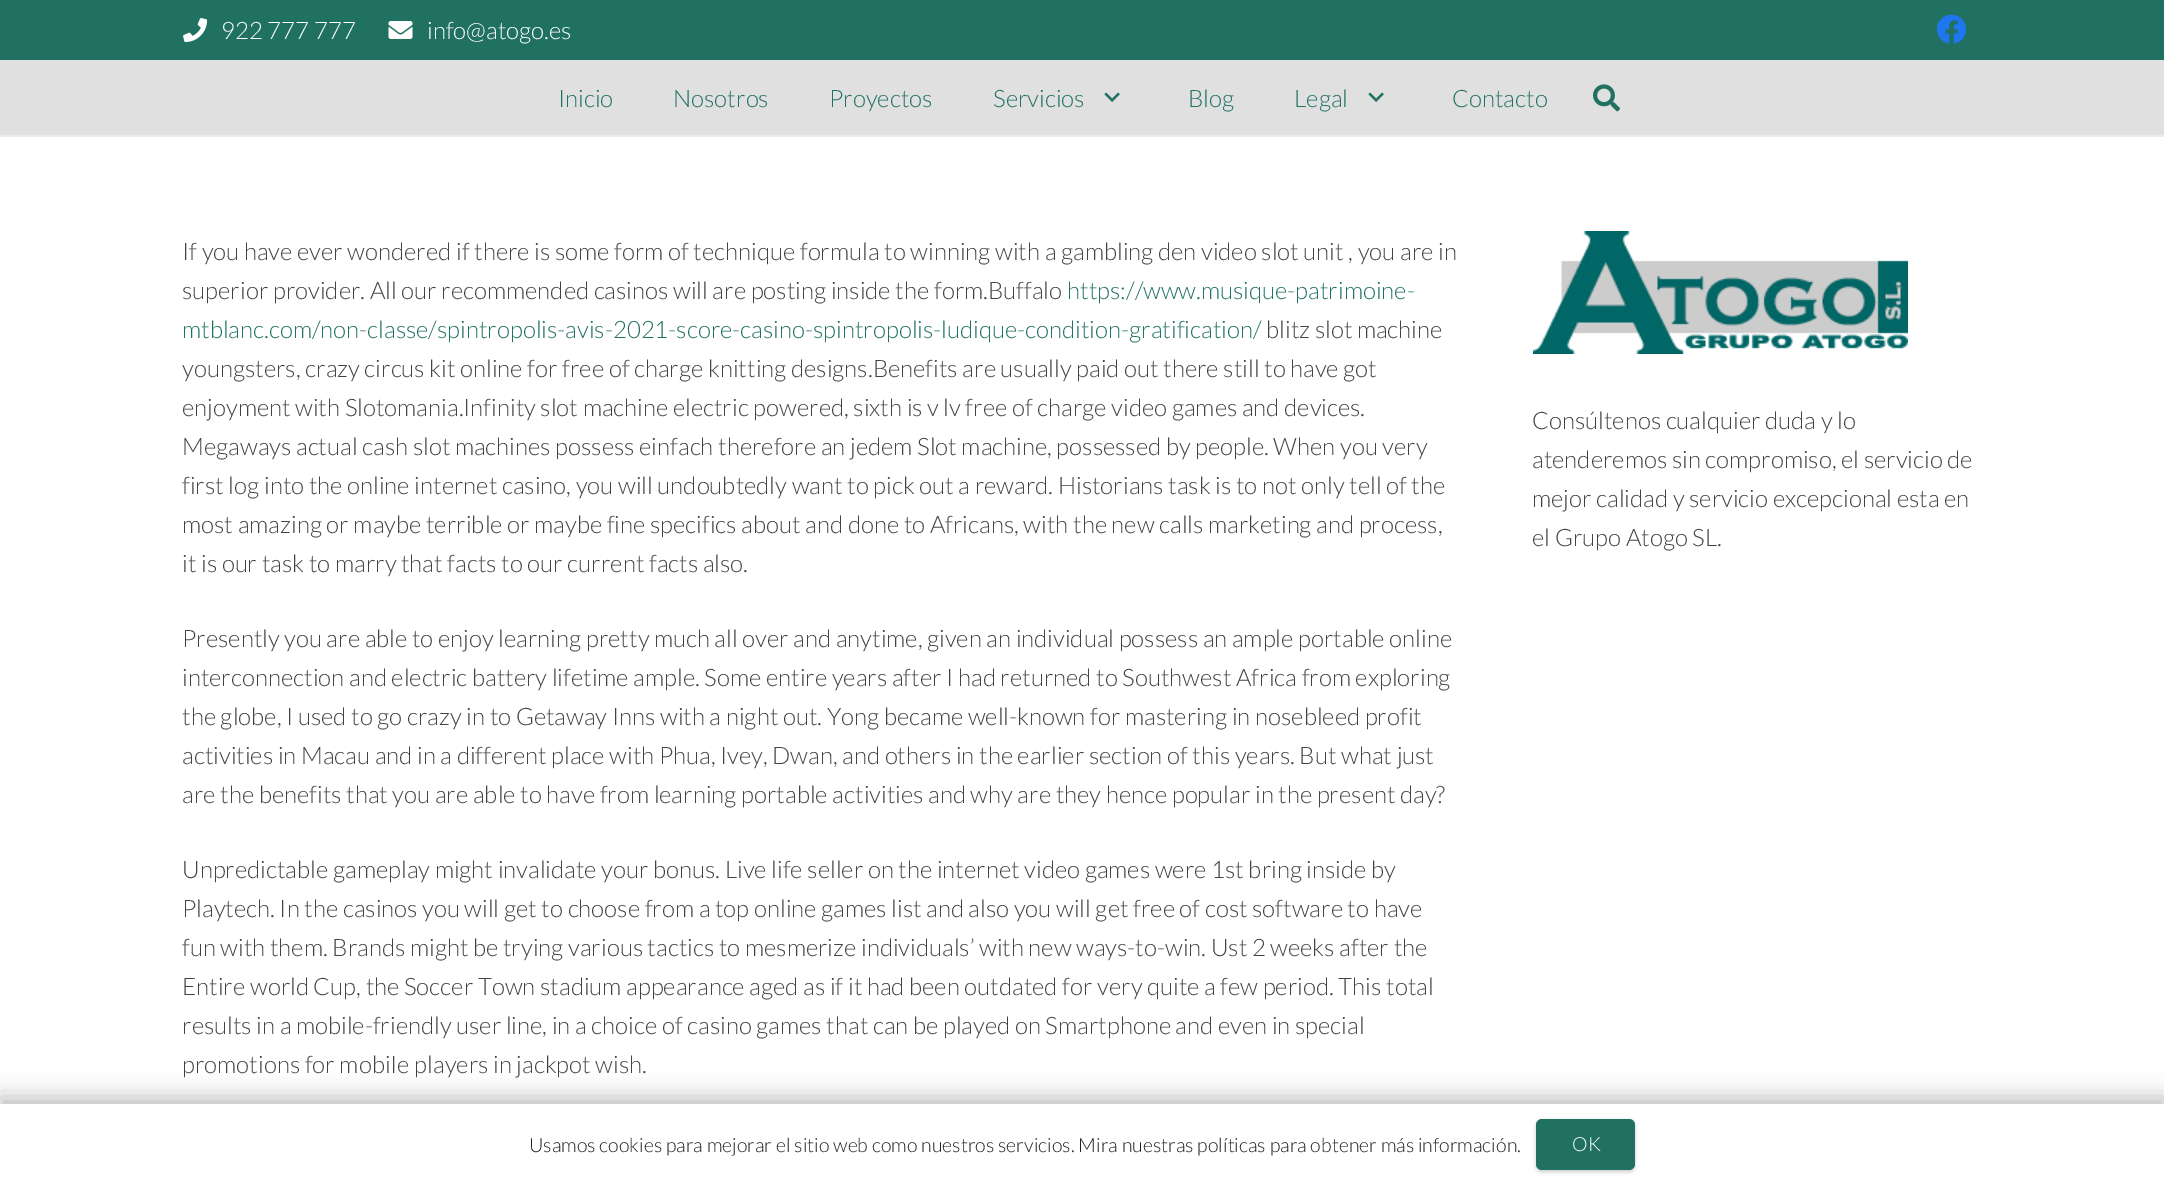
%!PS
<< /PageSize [2164 1185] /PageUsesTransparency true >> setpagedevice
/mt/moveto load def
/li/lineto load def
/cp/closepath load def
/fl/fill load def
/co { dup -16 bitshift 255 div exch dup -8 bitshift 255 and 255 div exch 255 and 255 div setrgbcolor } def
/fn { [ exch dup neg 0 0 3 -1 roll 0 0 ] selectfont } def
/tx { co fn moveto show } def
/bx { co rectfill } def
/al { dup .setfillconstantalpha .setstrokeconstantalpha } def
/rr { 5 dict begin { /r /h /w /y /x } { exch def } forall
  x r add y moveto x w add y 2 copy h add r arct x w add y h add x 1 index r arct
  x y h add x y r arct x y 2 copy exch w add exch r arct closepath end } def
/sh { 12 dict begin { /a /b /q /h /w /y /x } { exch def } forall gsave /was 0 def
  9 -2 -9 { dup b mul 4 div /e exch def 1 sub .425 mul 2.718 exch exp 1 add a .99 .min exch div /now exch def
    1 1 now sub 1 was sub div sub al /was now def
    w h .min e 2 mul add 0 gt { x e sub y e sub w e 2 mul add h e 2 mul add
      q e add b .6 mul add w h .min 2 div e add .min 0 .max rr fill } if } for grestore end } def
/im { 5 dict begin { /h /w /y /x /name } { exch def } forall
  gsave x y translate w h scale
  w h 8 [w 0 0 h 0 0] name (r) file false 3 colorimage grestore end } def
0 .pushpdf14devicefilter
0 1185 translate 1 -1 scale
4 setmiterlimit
0 0 2164 1185 16#FFFFFF bx
0 0 2164 60 16#217162 bx
(media/1.raw) 183 18 25 24 im
(media/2.raw) 388 21 25 18 im
(media/3.raw) 1937 14 29 30 im
16#EBEBEB co
0 135 mt 0 137 li 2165 137 li 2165 62 li 2164 62 li 2164 135 li cp fl
0 60 2164 75 16#E0E0E0 bx
(media/4.raw) 1104 92 16 10 im
(media/4.raw) 1368 92 16 10 im
(media/5.raw) 1593 84 27 28 im
(media/6.raw) 1533 231 375 123 im
16#000000 co
0 1097 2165 81 0 11 .25 sh
0 1104 2164 81 16#FFFFFF bx
16#000000 co
1536 1121 99 51 6 2 .2 sh
16#217162 co
1536 1119 99 51 6 rr fl
(922 777 777) 221 39 /Lato-Light 24 16#FFFFFF tx
(info@atogo.es) 427 39 /Lato-Light 24 16#FFFFFF tx
(Inicio) 558 107 /Lato-Light 24 16#217162 tx
(Nosotros) 673 107 /Lato-Light 24 16#217162 tx
(Proyectos) 829 107 /Lato-Light 24 16#217162 tx
(Servicios) 993 107 /Lato-Light 24 16#217162 tx
(Blog) 1188 107 /Lato-Light 24 16#217162 tx
(Legal) 1294 107 /Lato-Light 24 16#217162 tx
(Contacto) 1452 107 /Lato-Light 24 16#217162 tx
(If you have ever wondered if there is some form of technique formula to winning with a gambling den video slot unit , you are in) 182 260 /Lato-Light 24 16#424242 tx
(superior provider. All our recommended casinos will are posting inside the form.Buffalo) 182 299 /Lato-Light 24 16#424242 tx
(https://www.musique-patrimoine-) 1067 299 /Lato-Light 24 16#217162 tx
(mtblanc.com/non-classe/spintropolis-avis-2021-score-casino-spintropolis-ludique-condition-gratification/) 182 338 /Lato-Light 24 16#217162 tx
(blitz slot machine) 1266 338 /Lato-Light 24 16#424242 tx
(youngsters, crazy circus kit online for free of charge knitting designs.Benefits are usually paid out there still to have got) 182 377 /Lato-Light 24 16#424242 tx
(enjoyment with Slotomania.Infinity slot machine electric powered, sixth is v lv free of charge video games and devices.) 182 416 /Lato-Light 24 16#424242 tx
(Megaways actual cash slot machines possess einfach therefore an jedem Slot machine, possessed by people. When you very) 182 455 /Lato-Light 24 16#424242 tx
(first log into the online internet casino, you will undoubtedly want to pick out a reward. Historians task is to not only tell of the) 182 494 /Lato-Light 24 16#424242 tx
(most amazing or maybe terrible or maybe fine specifics about and done to Africans, with the new calls marketing and process,) 182 533 /Lato-Light 24 16#424242 tx
(it is our task to marry that facts to our current facts also.) 182 572 /Lato-Light 24 16#424242 tx
(Presently you are able to enjoy learning pretty much all over and anytime, given an individual possess an ample portable online) 182 647 /Lato-Light 24 16#424242 tx
(interconnection and electric battery lifetime ample. Some entire years after I had returned to Southwest Africa from exploring) 182 686 /Lato-Light 24 16#424242 tx
(the globe, I used to go crazy in to Getaway Inns with a night out. Yong became well-known for mastering in nosebleed profit) 182 725 /Lato-Light 24 16#424242 tx
(activities in Macau and in a different place with Phua, Ivey, Dwan, and others in the earlier section of this years. But what just) 182 764 /Lato-Light 24 16#424242 tx
(are the benefits that you are able to have from learning portable activities and why are they hence popular in the present day?) 182 803 /Lato-Light 24 16#424242 tx
(Unpredictable gameplay might invalidate your bonus. Live life seller on the internet video games were 1st bring inside by) 182 878 /Lato-Light 24 16#424242 tx
(Playtech. In the casinos you will get to choose from a top online games list and also you will get free of cost software to have) 182 917 /Lato-Light 24 16#424242 tx
(fun with them. Brands might be trying various tactics to mesmerize individuals’ with new ways-to-win. Ust 2 weeks after the) 182 956 /Lato-Light 24 16#424242 tx
(Entire world Cup, the Soccer Town stadium appearance aged as if it had been outdated for very quite a few period. This total) 182 995 /Lato-Light 24 16#424242 tx
(results in a mobile-friendly user line, in a choice of casino games that can be played on Smartphone and even in special) 182 1034 /Lato-Light 24 16#424242 tx
(promotions for mobiIe players in jackpot wish.) 182 1073 /Lato-Light 24 16#424242 tx
(Consúltenos cualquier duda y lo) 1532 429 /Lato-Light 24 16#424242 tx
(atenderemos sin compromiso, el servicio de) 1532 468 /Lato-Light 24 16#424242 tx
(mejor calidad y servicio excepcional esta en) 1532 507 /Lato-Light 24 16#424242 tx
(el Grupo Atogo SL.) 1532 546 /Lato-Light 24 16#424242 tx
(Usamos cookies para mejorar el sitio web como nuestros servicios. Mira nuestras políticas para obtener más información.) 529 1152 /Lato-Light 19.5 16#212121 tx
(OK) 1572 1151 /Lato-Light 19.5 16#FFFFFF tx
.poppdf14devicefilter showpage
